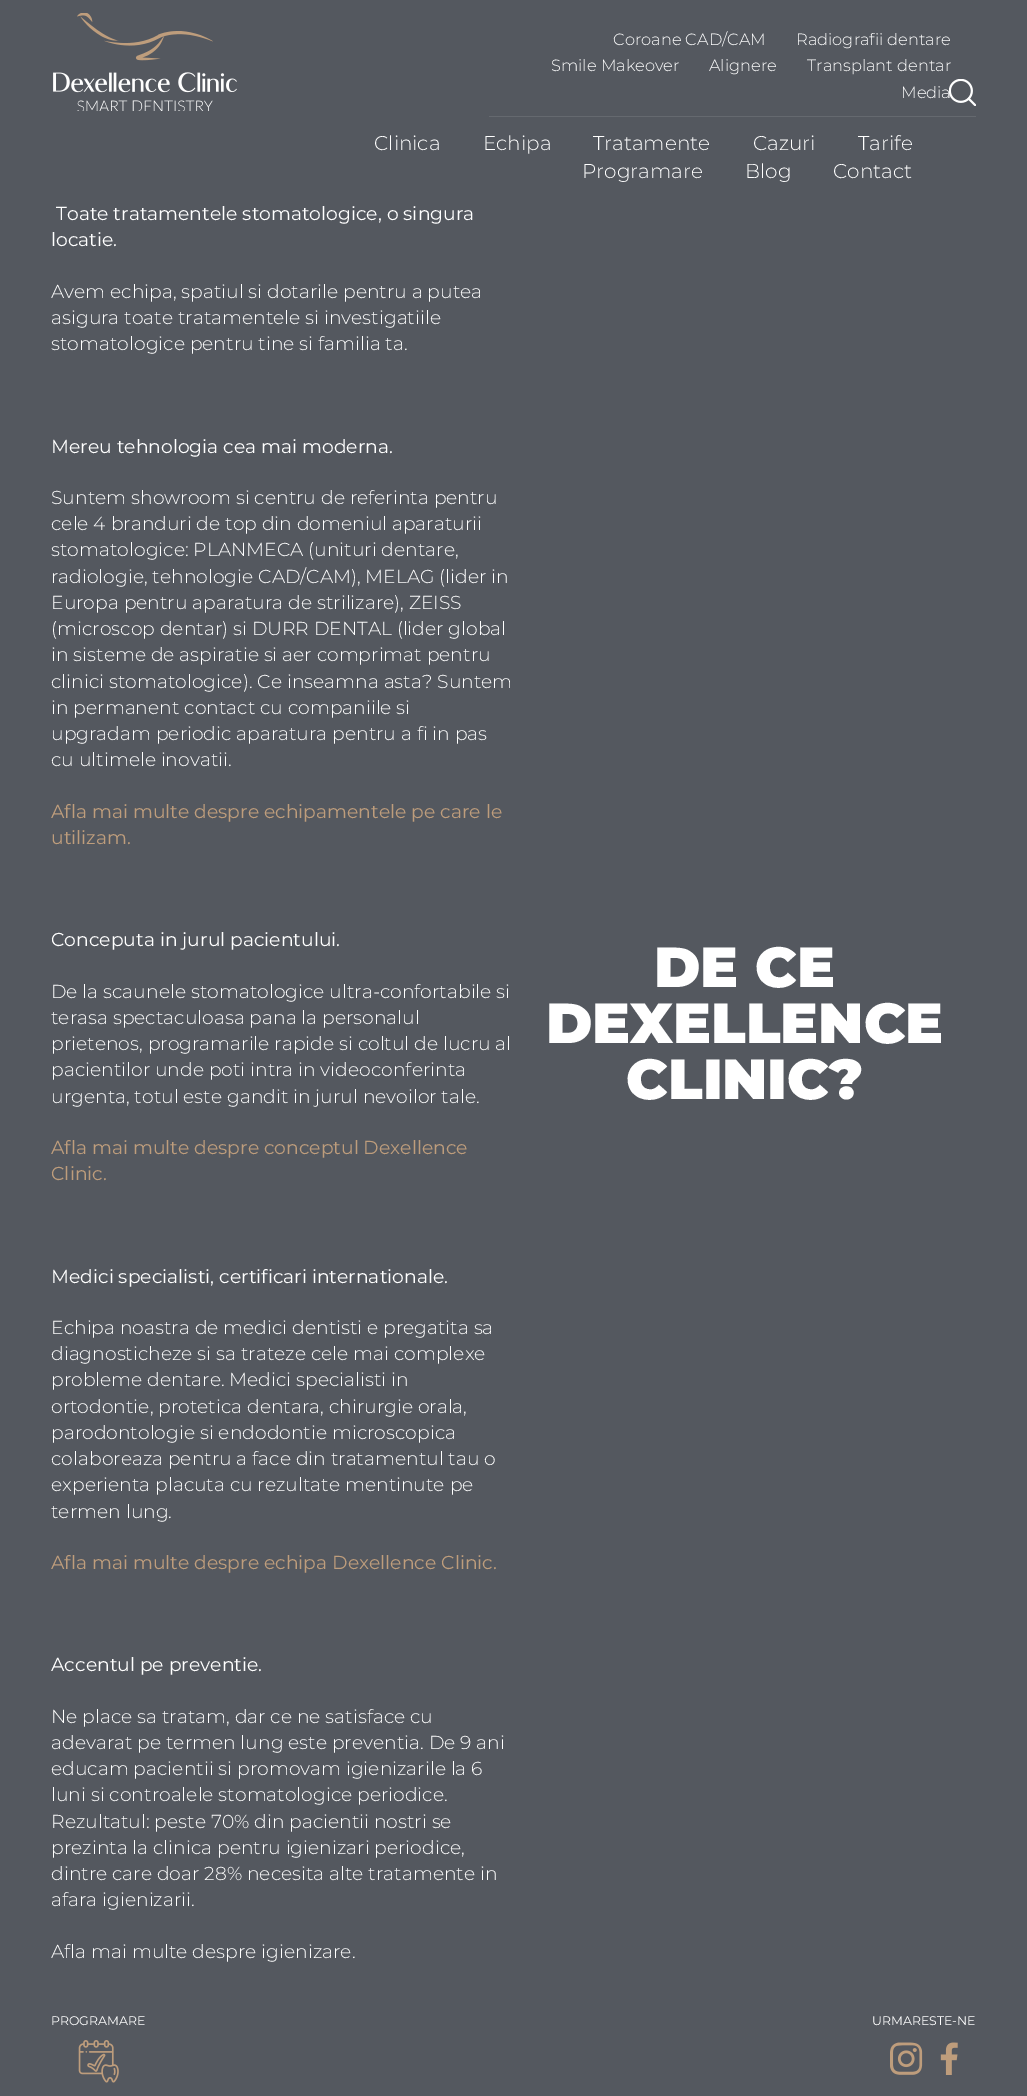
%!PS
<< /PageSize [1027 2096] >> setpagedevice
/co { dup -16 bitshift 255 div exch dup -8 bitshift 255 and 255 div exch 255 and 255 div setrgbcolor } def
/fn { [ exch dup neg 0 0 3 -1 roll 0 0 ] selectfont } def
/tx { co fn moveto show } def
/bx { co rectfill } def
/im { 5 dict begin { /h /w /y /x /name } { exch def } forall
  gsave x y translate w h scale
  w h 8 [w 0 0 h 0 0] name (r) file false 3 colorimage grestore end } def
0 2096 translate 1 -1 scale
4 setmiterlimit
0 0 1027 2096 16#54585F bx
(media/1.raw) 53 13 184 98 im
489 116 487 1 16#65696F bx
(media/3.raw) 78 2040 41 43 im
(media/4.raw) 890 2042 33 33 im
(media/5.raw) 940 2042 18 33 im
(Coroane CAD/CAM) 613 45 /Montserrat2-Thin 16.25 16#FFFFFF tx
(Radiografii dentare) 796 45 /Montserrat2-Thin 16.25 16#FFFFFF tx
(Smile Makeover) 551 71 /Montserrat2-Thin 16.25 16#FFFFFF tx
(Alignere) 709 71 /Montserrat2-Thin 16.25 16#FFFFFF tx
(Transplant dentar) 807 71 /Montserrat2-Thin 16.25 16#FFFFFF tx
(Media) 901 98 /Montserrat2-Thin 16.25 16#FFFFFF tx
(media/2.raw) 949 79 27 27 im
(Clinica) 374 150 /Montserrat2-Thin 20 16#FFFFFF tx
(Echipa) 483 150 /Montserrat2-Thin 20 16#FFFFFF tx
(Tratamente) 593 150 /Montserrat2-Thin 20 16#FFFFFF tx
(Cazuri) 753 150 /Montserrat2-Thin 20 16#FFFFFF tx
(Tarife) 858 150 /Montserrat2-Thin 20 16#FFFFFF tx
(Programare) 582 178 /Montserrat2-Thin 20 16#FFFFFF tx
(Blog) 745 178 /Montserrat2-Thin 20 16#FFFFFF tx
(Contact) 833 178 /Montserrat2-Thin 20 16#FFFFFF tx
(Toate tratamentele stomatologice, o singura) 56 220 /Montserrat-Thin 18.75 16#FFFFFF tx
(locatie.) 51 246 /Montserrat-Thin 18.75 16#FFFFFF tx
(Avem echipa, spatiul si dotarile pentru a putea) 51 298 /Montserrat2-Thin 18.75 16#FFFFFF tx
(asigura toate tratamentele si investigatiile) 51 324 /Montserrat2-Thin 18.75 16#FFFFFF tx
(stomatologice pentru tine si familia ta.) 51 350 /Montserrat2-Thin 18.75 16#FFFFFF tx
(Mereu tehnologia cea mai moderna.) 51 453 /Montserrat-Thin 18.75 16#FFFFFF tx
(Suntem showroom si centru de referinta pentru) 51 504 /Montserrat2-Thin 18.75 16#FFFFFF tx
(cele 4 branduri de top din domeniul aparaturii) 51 530 /Montserrat2-Thin 18.75 16#FFFFFF tx
(stomatologice: PLANMECA \(unituri dentare,) 51 556 /Montserrat2-Thin 18.75 16#FFFFFF tx
(radiologie, tehnologie CAD/CAM\), MELAG \(lider in) 51 583 /Montserrat2-Thin 18.75 16#FFFFFF tx
(Europa pentru aparatura de strilizare\), ZEISS) 51 609 /Montserrat2-Thin 18.75 16#FFFFFF tx
(\(microscop dentar\) si DURR DENTAL \(lider global) 51 635 /Montserrat2-Thin 18.75 16#FFFFFF tx
(in sisteme de aspiratie si aer comprimat pentru) 51 661 /Montserrat2-Thin 18.75 16#FFFFFF tx
(clinici stomatologice\). Ce inseamna asta? Suntem) 51 688 /Montserrat2-Thin 18.75 16#FFFFFF tx
(in permanent contact cu companiile si) 51 714 /Montserrat2-Thin 18.75 16#FFFFFF tx
(upgradam periodic aparatura pentru a fi in pas) 51 740 /Montserrat2-Thin 18.75 16#FFFFFF tx
(cu ultimele inovatii.) 51 766 /Montserrat2-Thin 18.75 16#FFFFFF tx
(Afla mai multe despre echipamentele pe care le) 51 818 /Montserrat-Thin 18.75 16#BE9D7C tx
(utilizam.) 51 844 /Montserrat-Thin 18.75 16#BE9D7C tx
(Conceputa in jurul pacientului.) 51 946 /Montserrat-Thin 18.75 16#FFFFFF tx
(De la scaunele stomatologice ultra-confortabile si) 51 998 /Montserrat2-Thin 18.75 16#FFFFFF tx
(terasa spectaculoasa pana la personalul) 51 1024 /Montserrat2-Thin 18.75 16#FFFFFF tx
(prietenos, programarile rapide si coltul de lucru al) 51 1050 /Montserrat2-Thin 18.75 16#FFFFFF tx
(pacientilor unde poti intra in videoconferinta) 51 1076 /Montserrat2-Thin 18.75 16#FFFFFF tx
(urgenta, totul este gandit in jurul nevoilor tale.) 51 1103 /Montserrat2-Thin 18.75 16#FFFFFF tx
(Afla mai multe despre conceptul Dexellence) 51 1154 /Montserrat-Thin 18.75 16#BE9D7C tx
(Clinic.) 51 1180 /Montserrat-Thin 18.75 16#BE9D7C tx
(Medici specialisti, certificari internationale.) 51 1283 /Montserrat-Thin 18.75 16#FFFFFF tx
(Echipa noastra de medici dentisti e pregatita sa) 51 1334 /Montserrat2-Thin 18.75 16#FFFFFF tx
(diagnosticheze si sa trateze cele mai complexe) 51 1360 /Montserrat2-Thin 18.75 16#FFFFFF tx
(probleme dentare. Medici specialisti in) 51 1386 /Montserrat2-Thin 18.75 16#FFFFFF tx
(ortodontie, protetica dentara, chirurgie orala,) 51 1413 /Montserrat2-Thin 18.75 16#FFFFFF tx
(parodontologie si endodontie microscopica) 51 1439 /Montserrat2-Thin 18.75 16#FFFFFF tx
(colaboreaza pentru a face din tratamentul tau o) 51 1465 /Montserrat2-Thin 18.75 16#FFFFFF tx
(experienta placuta cu rezultate mentinute pe) 51 1491 /Montserrat2-Thin 18.75 16#FFFFFF tx
(termen lung.) 51 1518 /Montserrat2-Thin 18.75 16#FFFFFF tx
(Afla mai multe despre echipa Dexellence Clinic.) 51 1569 /Montserrat-Thin 18.75 16#BE9D7C tx
(Accentul pe preventie.) 51 1671 /Montserrat-Thin 18.75 16#FFFFFF tx
(Ne place sa tratam, dar ce ne satisface cu) 51 1723 /Montserrat2-Thin 18.75 16#FFFFFF tx
(adevarat pe termen lung este preventia. De 9 ani) 51 1749 /Montserrat2-Thin 18.75 16#FFFFFF tx
(educam pacientii si promovam igienizarile la 6) 51 1775 /Montserrat2-Thin 18.75 16#FFFFFF tx
(luni si controalele stomatologice periodice.) 51 1801 /Montserrat2-Thin 18.75 16#FFFFFF tx
(Rezultatul: peste 70% din pacientii nostri se) 51 1828 /Montserrat2-Thin 18.75 16#FFFFFF tx
(prezinta la clinica pentru igienizari periodice,) 51 1854 /Montserrat2-Thin 18.75 16#FFFFFF tx
(dintre care doar 28% necesita alte tratamente in) 51 1880 /Montserrat2-Thin 18.75 16#FFFFFF tx
(afara igienizarii.) 51 1906 /Montserrat2-Thin 18.75 16#FFFFFF tx
(Afla mai multe despre igienizare.) 51 1958 /Montserrat2-Thin 18.75 16#FFFFFF tx
(DE CE) 654 987 /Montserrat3-Thin 56.25 16#FFFFFF tx
(DEXELLENCE) 546 1043 /Montserrat3-Thin 56.25 16#FFFFFF tx
(CLINIC?) 626 1099 /Montserrat3-Thin 56.25 16#FFFFFF tx
(PROGRAMARE) 51 2025 /Montserrat-Thin 12.5 16#FFFFFF tx
(URMARESTE-NE) 872 2025 /Montserrat-Thin 12.5 16#FFFFFF tx
showpage
